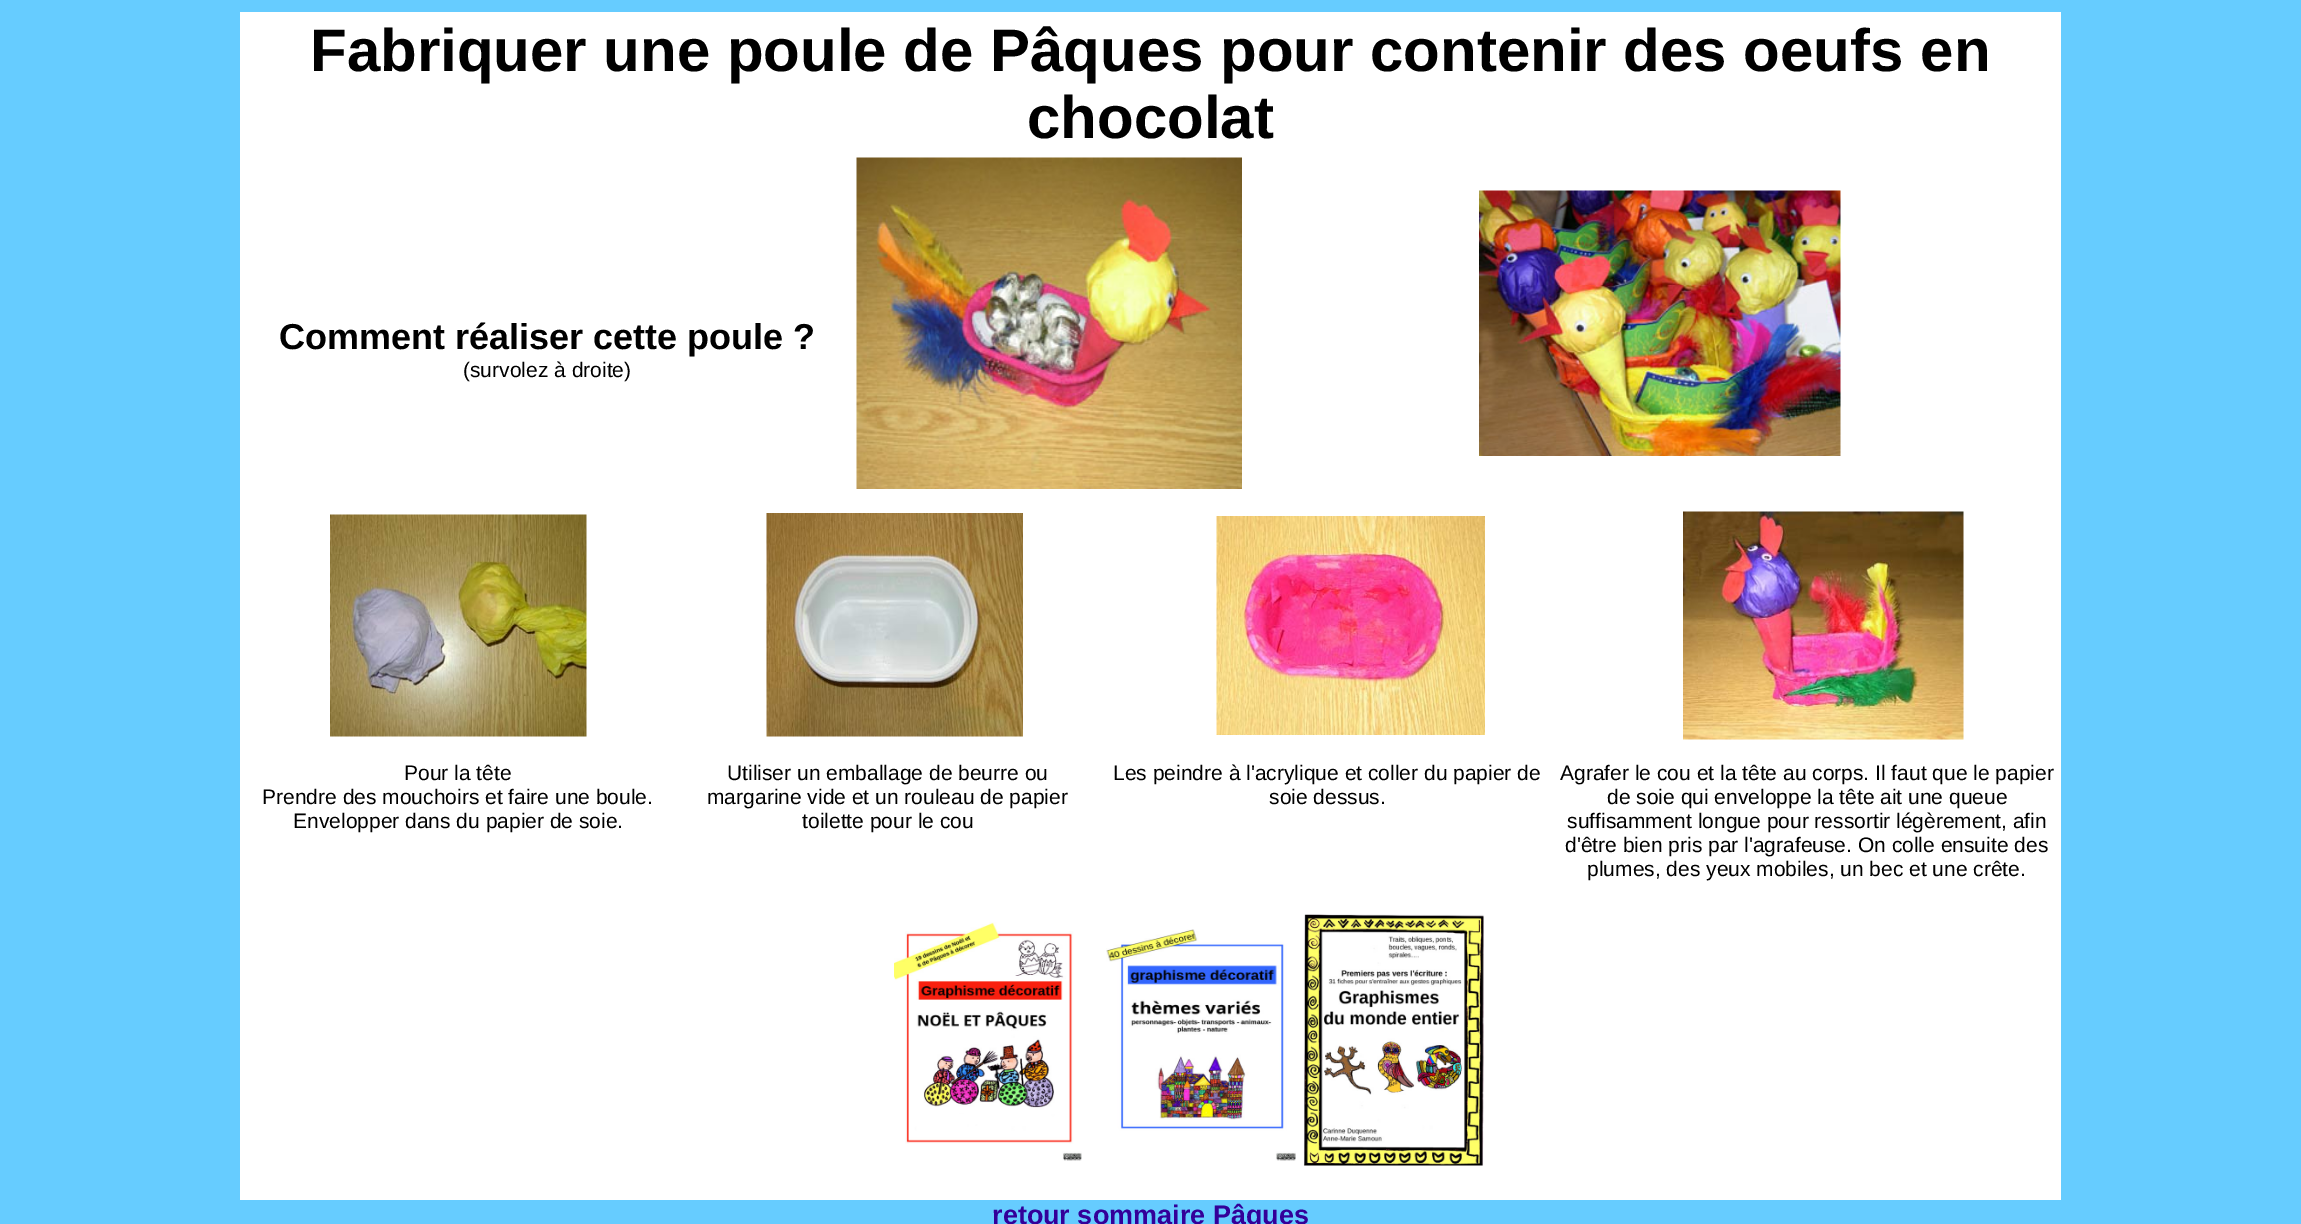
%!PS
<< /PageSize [2301 1224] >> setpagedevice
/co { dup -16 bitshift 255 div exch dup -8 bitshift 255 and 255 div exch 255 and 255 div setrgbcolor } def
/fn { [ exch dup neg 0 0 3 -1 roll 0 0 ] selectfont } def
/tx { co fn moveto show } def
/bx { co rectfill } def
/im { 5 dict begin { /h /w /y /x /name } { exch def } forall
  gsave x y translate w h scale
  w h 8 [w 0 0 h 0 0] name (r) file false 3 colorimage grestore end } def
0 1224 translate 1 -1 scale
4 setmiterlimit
0 0 2301 1224 16#66CCFF bx
240 12 1821 1188 16#FFFFFF bx
(media/1.raw) 856 157 386 332 im
(media/2.raw) 1479 190 362 266 im
(media/3.raw) 330 514 257 223 im
(media/4.raw) 766 513 257 224 im
(media/5.raw) 1216 516 269 219 im
(media/6.raw) 1683 511 281 229 im
(media/7.raw) 894 922 188 239 im
(media/8.raw) 1106 929 190 232 im
(media/9.raw) 1303 914 181 252 im
(Fabriquer une poule de Pâques pour contenir des oeufs en) 310 71 /LiberationSans-Bold 60 16#000000 tx
(chocolat) 1027 138 /LiberationSans-Bold 60 16#000000 tx
(Comment réaliser cette poule ?) 279 349 /LiberationSans-Bold 36 16#000000 tx
(\(survolez à droite\)) 463 377 /LiberationSans-Regular 21 16#000000 tx
(Pour la tête) 404 780 /LiberationSans-Regular 21 16#000000 tx
(Prendre des mouchoirs et faire une boule.) 262 804 /LiberationSans-Regular 21 16#000000 tx
(Envelopper dans du papier de soie.) 293 828 /LiberationSans-Regular 21 16#000000 tx
(Utiliser un emballage de beurre ou) 727 780 /LiberationSans-Regular 21 16#000000 tx
(margarine vide et un rouleau de papier) 707 804 /LiberationSans-Regular 21 16#000000 tx
(toilette pour le cou) 802 828 /LiberationSans-Regular 21 16#000000 tx
(Les peindre à l'acrylique et coller du papier de) 1113 780 /LiberationSans-Regular 21 16#000000 tx
(soie dessus.) 1269 804 /LiberationSans-Regular 21 16#000000 tx
(Agrafer le cou et la tête au corps. Il faut que le papier) 1560 780 /LiberationSans-Regular 21 16#000000 tx
(de soie qui enveloppe la tête ait une queue) 1607 804 /LiberationSans-Regular 21 16#000000 tx
(suffisamment longue pour ressortir légèrement, afin) 1567 828 /LiberationSans-Regular 21 16#000000 tx
(d'être bien pris par l'agrafeuse. On colle ensuite des) 1565 852 /LiberationSans-Regular 21 16#000000 tx
(plumes, des yeux mobiles, un bec et une crête.) 1587 876 /LiberationSans-Regular 21 16#000000 tx
(retour sommaire Pâques) 992 1224 /LiberationSans-Bold 27 16#330099 tx
showpage
